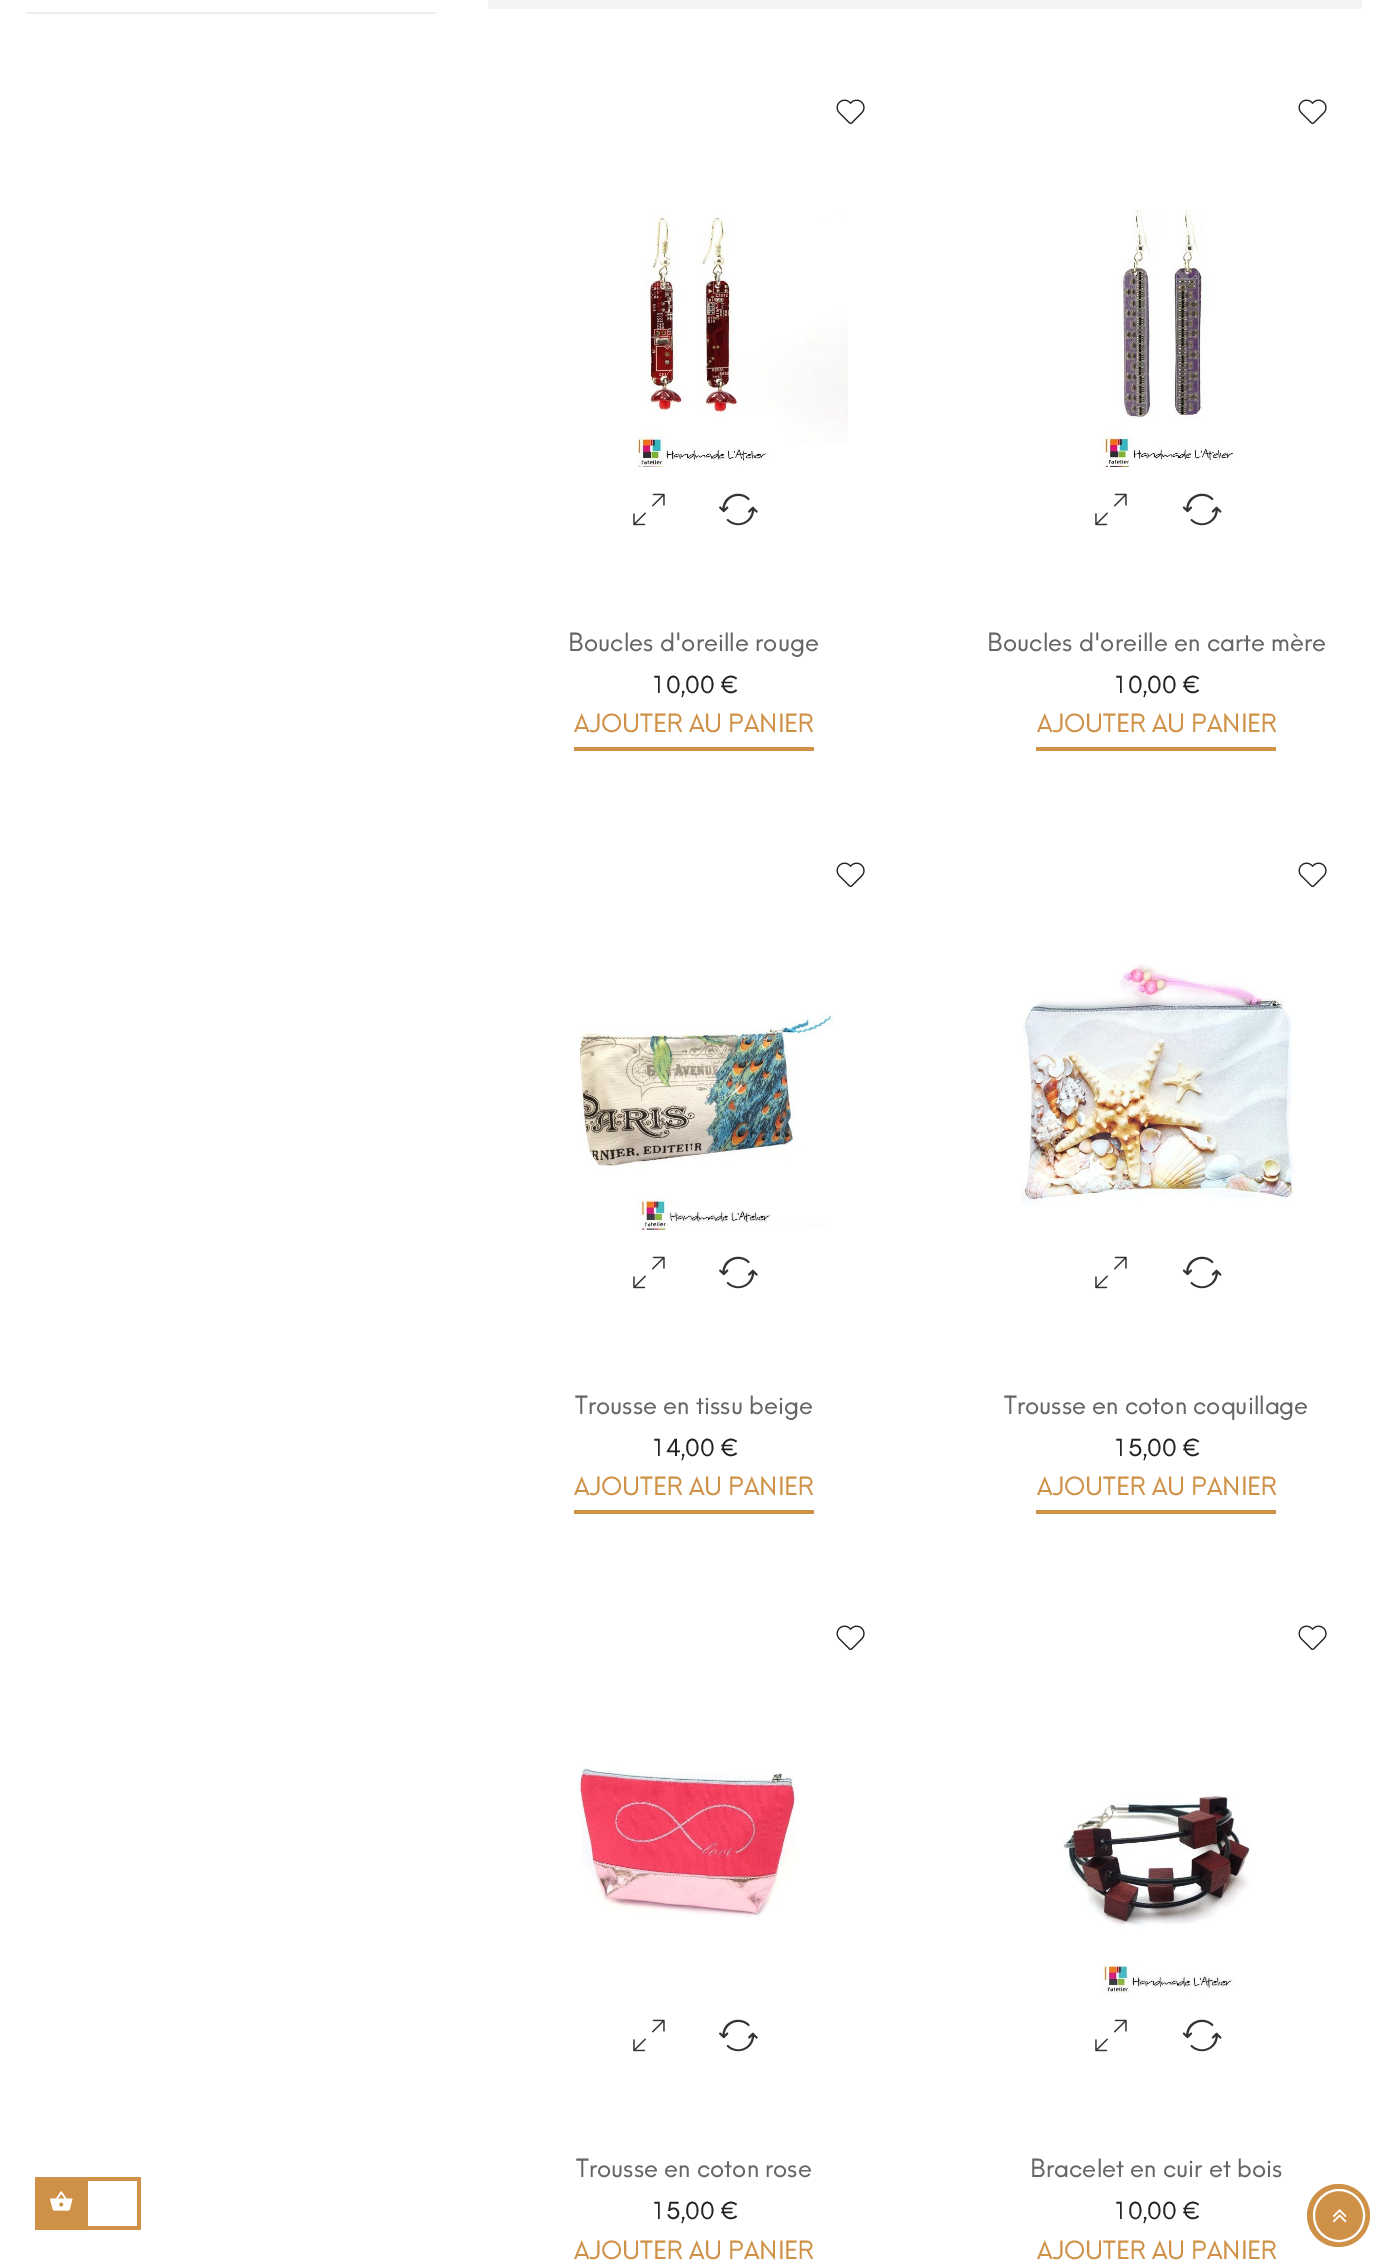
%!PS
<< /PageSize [1387 2263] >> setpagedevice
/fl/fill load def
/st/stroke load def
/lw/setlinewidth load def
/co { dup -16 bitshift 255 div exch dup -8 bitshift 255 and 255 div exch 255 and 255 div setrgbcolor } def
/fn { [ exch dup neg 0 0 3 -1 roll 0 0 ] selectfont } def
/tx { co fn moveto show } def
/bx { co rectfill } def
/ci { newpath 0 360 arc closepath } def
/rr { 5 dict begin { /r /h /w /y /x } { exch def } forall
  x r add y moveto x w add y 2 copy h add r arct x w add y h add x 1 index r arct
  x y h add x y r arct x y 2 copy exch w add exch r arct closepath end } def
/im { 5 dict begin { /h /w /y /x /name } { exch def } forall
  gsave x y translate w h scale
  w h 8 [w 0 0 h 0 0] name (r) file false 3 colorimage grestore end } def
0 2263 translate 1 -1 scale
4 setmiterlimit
0 0 1387 2263 16#FFFFFF bx
35 2177 106 53 16#CF9147 bx
(media/1.raw) 50 2191 23 20 im
88 2181 49 45 16#FFFFFF bx
26 12 410 2 16#EEEEEE bx
488 0 874 9 16#F4F4F4 bx
(media/2.raw) 836 99 29 25 im
(media/3.raw) 636 215 212 257 im
636 467 33 5 16#FFFFFF bx
(media/4.raw) 633 493 32 33 im
(media/5.raw) 719 493 39 33 im
574 747 240 4 16#CF9147 bx
(media/2.raw) 1298 99 29 25 im
(media/6.raw) 1101 209 134 262 im
1101 467 31 4 16#FFFFFF bx
(media/4.raw) 1095 493 32 33 im
(media/7.raw) 1182 493 40 33 im
1036 747 240 4 16#CF9147 bx
(media/2.raw) 836 862 29 25 im
(media/8.raw) 579 1013 255 222 im
636 1230 36 5 16#FFFFFF bx
(media/4.raw) 633 1256 32 33 im
(media/5.raw) 719 1256 39 33 im
574 1510 240 4 16#CF9147 bx
(media/2.raw) 1298 862 29 25 im
(media/9.raw) 1020 964 276 243 im
(media/4.raw) 1095 1256 32 33 im
(media/7.raw) 1182 1256 40 33 im
1036 1510 240 4 16#CF9147 bx
(media/2.raw) 836 1625 29 25 im
(media/10.raw) 577 1766 221 151 im
(media/4.raw) 633 2019 32 33 im
(media/5.raw) 719 2019 39 33 im
(media/2.raw) 1298 1625 29 25 im
(media/11.raw) 1061 1794 191 204 im
1099 1993 33 5 16#FFFFFF bx
(media/4.raw) 1095 2019 32 33 im
(media/7.raw) 1182 2019 40 33 im
16#CF9147 co
1338.5 2215.5 31.5 ci fl
16#FFFFFF co
2 lw
1314 2190 50 51 25 rr st
(media/12.raw) 1332 2209 15 14 im
(Boucles d'oreille rouge) 568 651 /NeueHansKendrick-Regular 24.5 16#666666 tx
(10,00 €) 651 693 /NeueHansKendrick-Regular 23 16#222222 tx
(AJOUTER AU PANIER) 574 732 /NeueHansKendrick-Regular 24.5 16#CF9147 tx
(Boucles d'oreille en carte mère) 987 651 /NeueHansKendrick-Regular 24.5 16#666666 tx
(10,00 €) 1113 693 /NeueHansKendrick-Regular 23 16#222222 tx
(AJOUTER AU PANIER) 1037 732 /NeueHansKendrick-Regular 24.5 16#CF9147 tx
(Trousse en tissu beige) 575 1414 /NeueHansKendrick-Regular 24.5 16#666666 tx
(14,00 €) 651 1456 /NeueHansKendrick-Regular 23 16#222222 tx
(AJOUTER AU PANIER) 574 1495 /NeueHansKendrick-Regular 24.5 16#CF9147 tx
(Trousse en coton coquillage) 1004 1414 /NeueHansKendrick-Regular 24.5 16#666666 tx
(15,00 €) 1113 1456 /NeueHansKendrick-Regular 23 16#222222 tx
(AJOUTER AU PANIER) 1037 1495 /NeueHansKendrick-Regular 24.5 16#CF9147 tx
(Trousse en coton rose) 576 2177 /NeueHansKendrick-Regular 24.5 16#666666 tx
(15,00 €) 651 2219 /NeueHansKendrick-Regular 23 16#222222 tx
(AJOUTER AU PANIER) 574 2259 /NeueHansKendrick-Regular 24.5 16#CF9147 tx
(Bracelet en cuir et bois) 1030 2177 /NeueHansKendrick-Regular 24.5 16#666666 tx
(10,00 €) 1113 2219 /NeueHansKendrick-Regular 23 16#222222 tx
(AJOUTER AU PANIER) 1037 2259 /NeueHansKendrick-Regular 24.5 16#CF9147 tx
showpage
